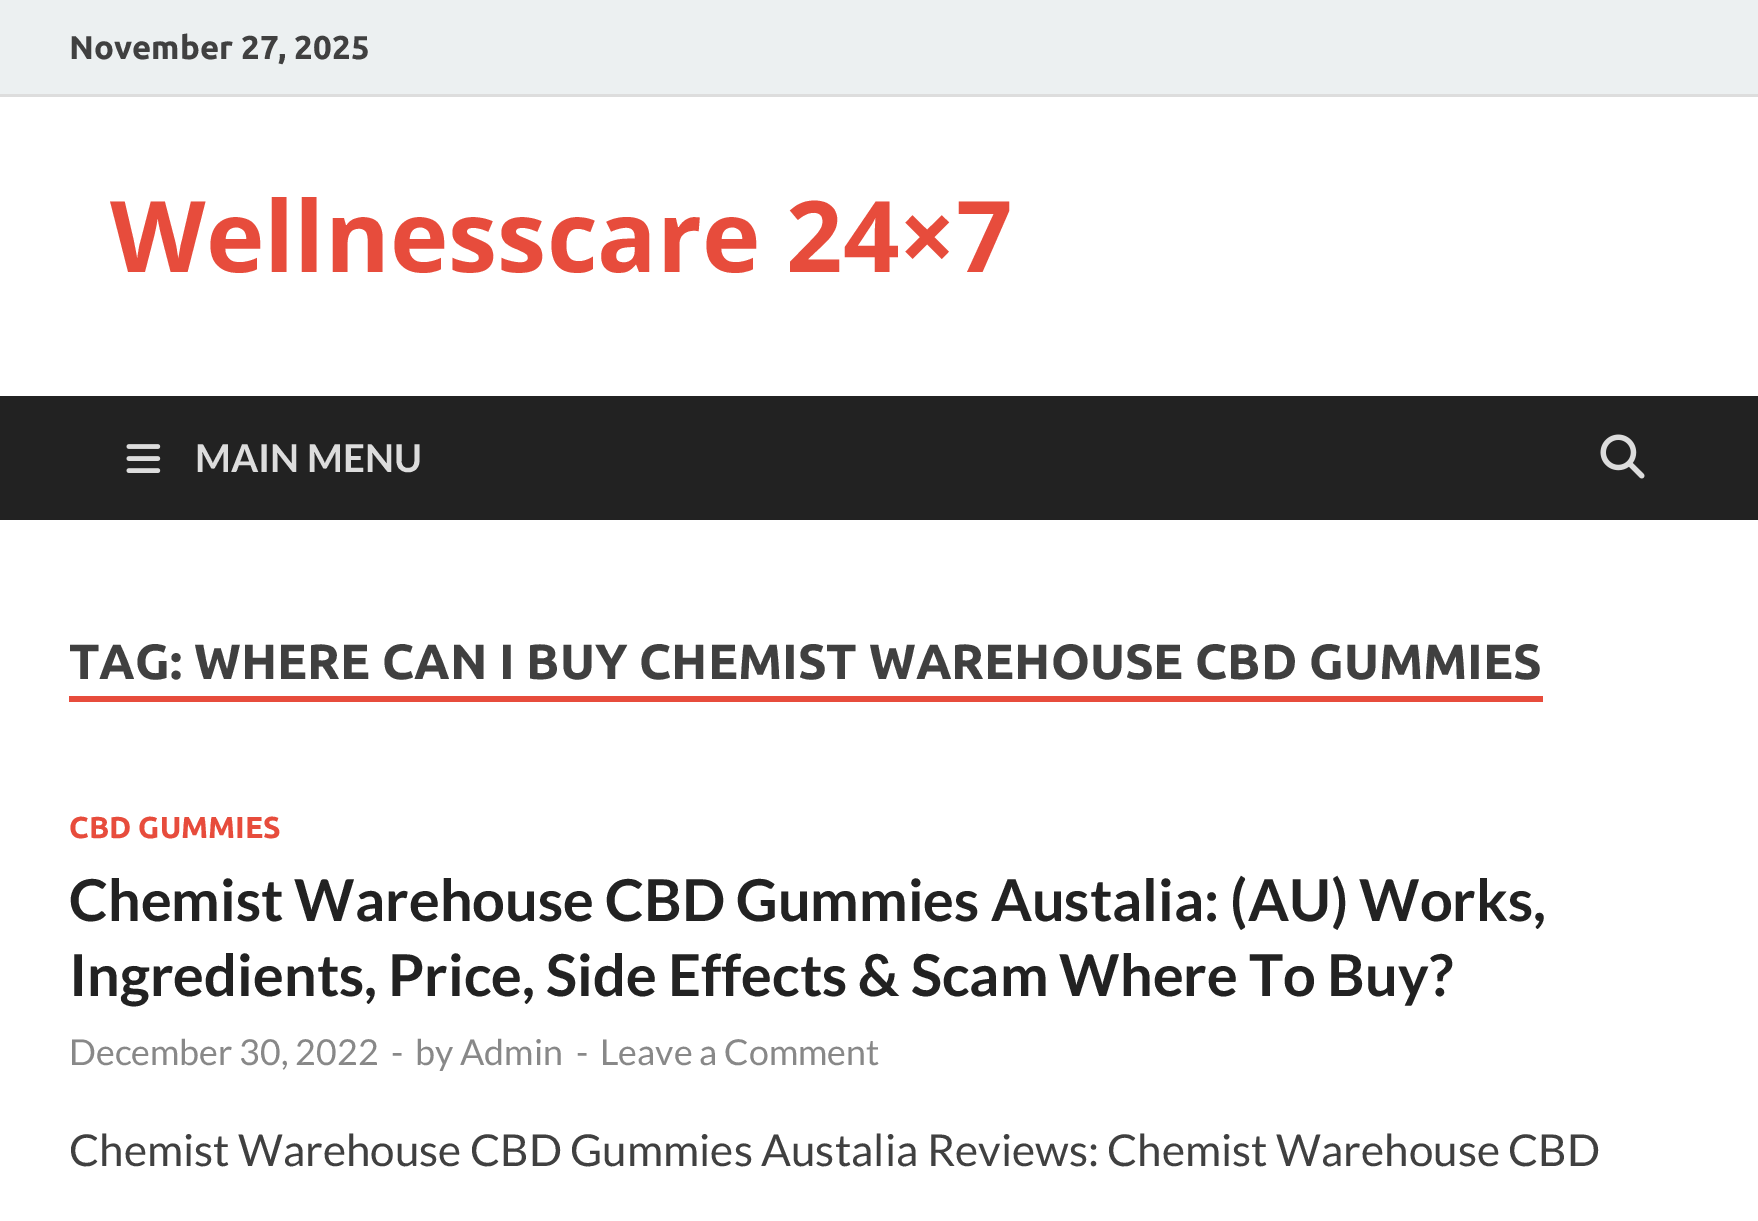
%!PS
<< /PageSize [1758 1221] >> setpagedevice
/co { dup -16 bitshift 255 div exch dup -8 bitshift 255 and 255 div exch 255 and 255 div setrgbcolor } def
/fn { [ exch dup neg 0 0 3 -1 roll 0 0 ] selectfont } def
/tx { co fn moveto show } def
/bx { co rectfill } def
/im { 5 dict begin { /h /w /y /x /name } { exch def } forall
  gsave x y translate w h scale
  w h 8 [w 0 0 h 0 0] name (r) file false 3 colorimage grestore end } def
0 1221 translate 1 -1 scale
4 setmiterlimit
0 0 1758 1221 16#FFFFFF bx
0 0 1758 94 16#ECF0F1 bx
0 94 1758 3 16#DDDDDD bx
0 396 1758 124 16#222222 bx
(media/1.raw) 126 444 35 29 im
(media/2.raw) 1600 434 45 45 im
69 696 1474 6 16#E74C3C bx
(November 27, 2025) 69 59 /Ubuntu-Bold 33 16#404040 tx
(Wellnesscare 24×7) 110 272 /OpenSans-Bold 99 16#E74C3C tx
(MAIN MENU) 195 472 /Lato-Bold 38.5 16#DDDDDD tx
(TAG: WHERE CAN I BUY CHEMIST WAREHOUSE CBD GUMMIES) 69 679 /Ubuntu-Bold 49.5 16#404040 tx
(CBD GUMMIES) 69 838 /Ubuntu-Bold 30.25 16#E74C3C tx
(Chemist Warehouse CBD Gummies Austalia: \(AU\) Works,) 69 921 /Lato-Bold 57.75 16#222222 tx
(Ingredients, Price, Side Effects & Scam Where To Buy?) 69 996 /Lato-Bold 57.75 16#222222 tx
(December 30, 2022) 69 1065 /Lato-Regular 35.75 16#888888 tx
(-) 391 1065 /Lato-Regular 35.75 16#888888 tx
(by Admin) 415 1065 /Lato-Regular 35.75 16#888888 tx
(-) 576 1065 /Lato-Regular 35.75 16#888888 tx
(Leave a Comment) 600 1065 /Lato-Regular 35.75 16#888888 tx
(Chemist Warehouse CBD Gummies Austalia Reviews: Chemist Warehouse CBD) 69 1166 /Lato-Regular 44 16#404040 tx
showpage
